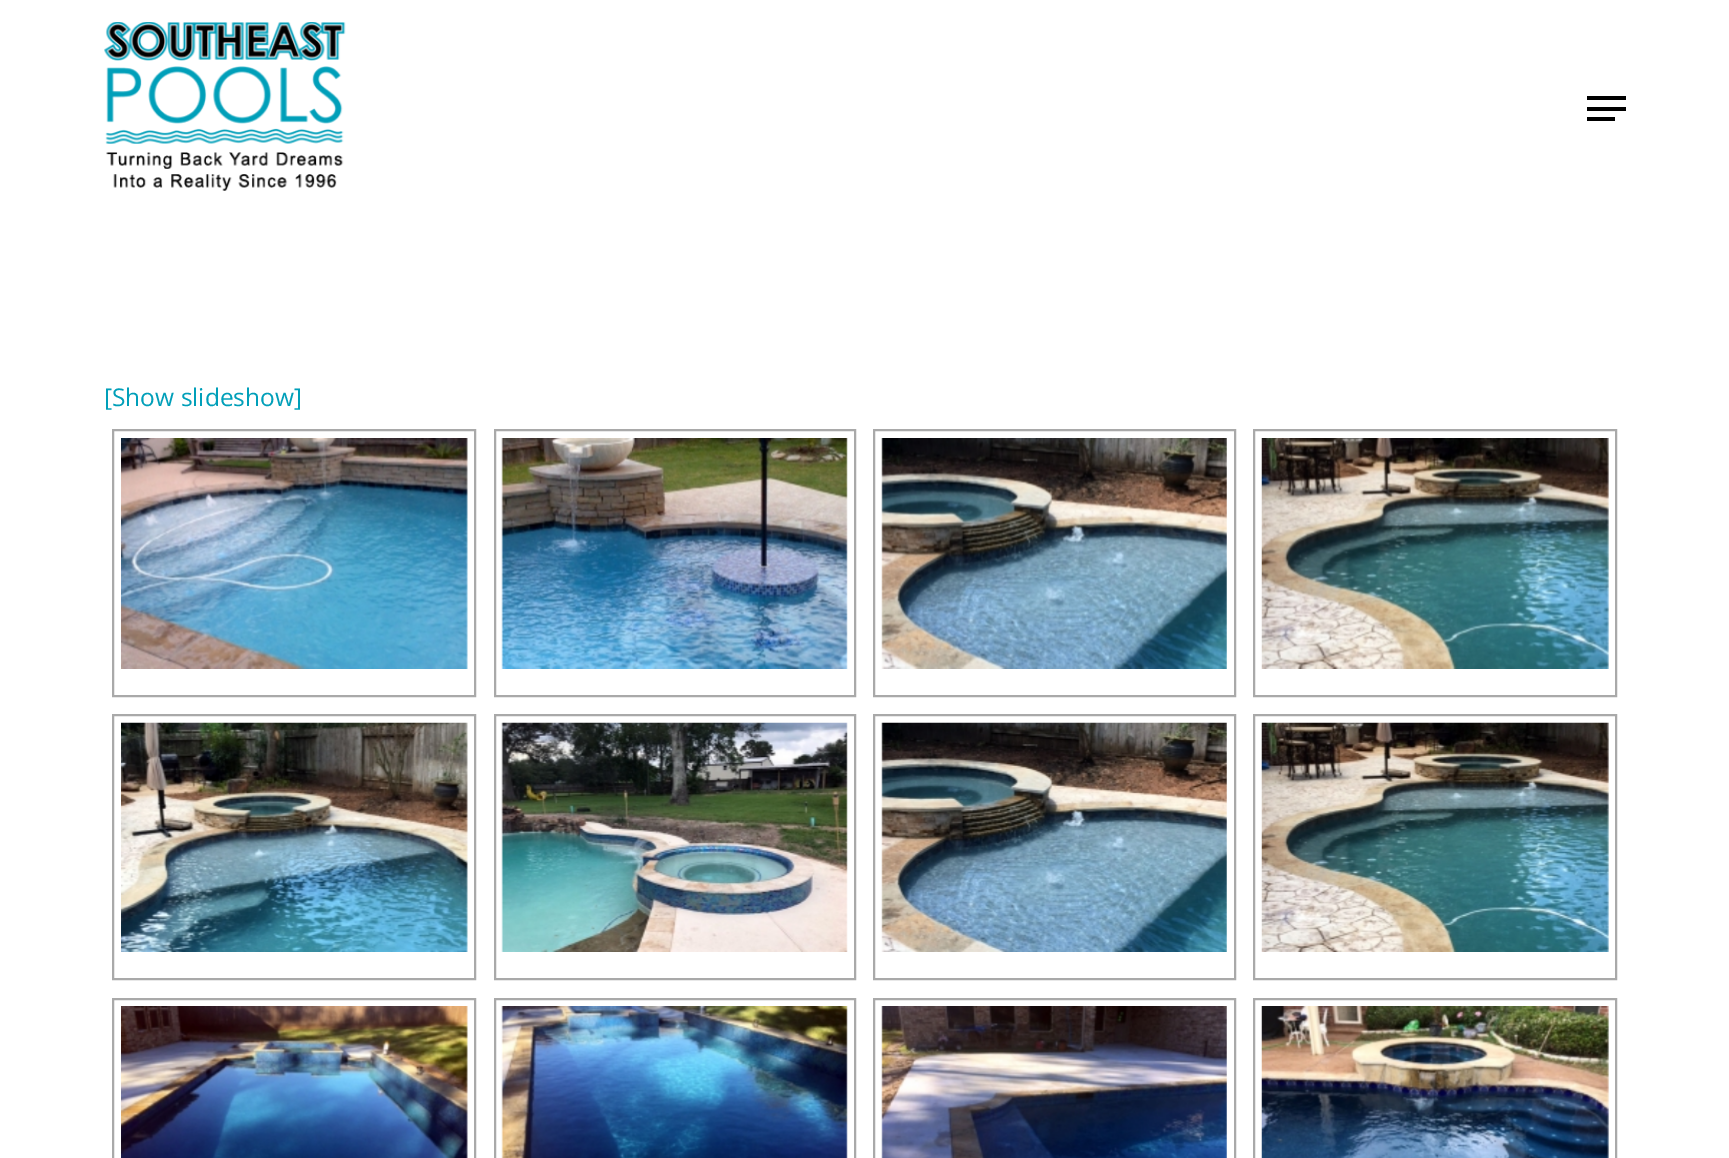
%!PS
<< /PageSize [1729 1158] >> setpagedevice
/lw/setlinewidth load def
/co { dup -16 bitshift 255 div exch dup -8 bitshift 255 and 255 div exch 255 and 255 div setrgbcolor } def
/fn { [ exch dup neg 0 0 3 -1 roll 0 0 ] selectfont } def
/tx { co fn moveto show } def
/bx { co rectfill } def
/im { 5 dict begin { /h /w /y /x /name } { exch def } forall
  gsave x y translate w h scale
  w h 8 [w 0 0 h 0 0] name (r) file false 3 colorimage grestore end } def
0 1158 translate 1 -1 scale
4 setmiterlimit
0 0 1729 1158 16#FFFFFF bx
(media/1.raw) 104 22 242 169 im
1587 96 39 4 16#000000 bx
1587 117 28 4 16#000000 bx
1587 107 39 4 16#000000 bx
16#A9A9A9 co
2 lw
113 430 362 266 rectstroke
(media/2.raw) 121 438 347 231 im
495 430 360 266 rectstroke
(media/3.raw) 501 438 347 231 im
874 430 361 266 rectstroke
(media/4.raw) 881 438 346 231 im
1254 430 362 266 rectstroke
(media/5.raw) 1261 438 348 231 im
113 715 362 264 rectstroke
(media/6.raw) 121 722 347 230 im
495 715 360 264 rectstroke
(media/7.raw) 501 722 347 230 im
874 715 361 264 rectstroke
(media/8.raw) 881 722 346 230 im
1254 715 362 264 rectstroke
(media/9.raw) 1261 722 348 230 im
113 999 362 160 rectstroke
(media/10.raw) 121 1006 347 152 im
495 999 360 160 rectstroke
(media/11.raw) 501 1006 347 152 im
874 999 361 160 rectstroke
(media/12.raw) 881 1006 346 152 im
1254 999 362 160 rectstroke
(media/13.raw) 1261 1006 348 152 im
([Show slideshow]) 104 406 /OpenSans-Regular 24.5 16#009FB9 tx
showpage
